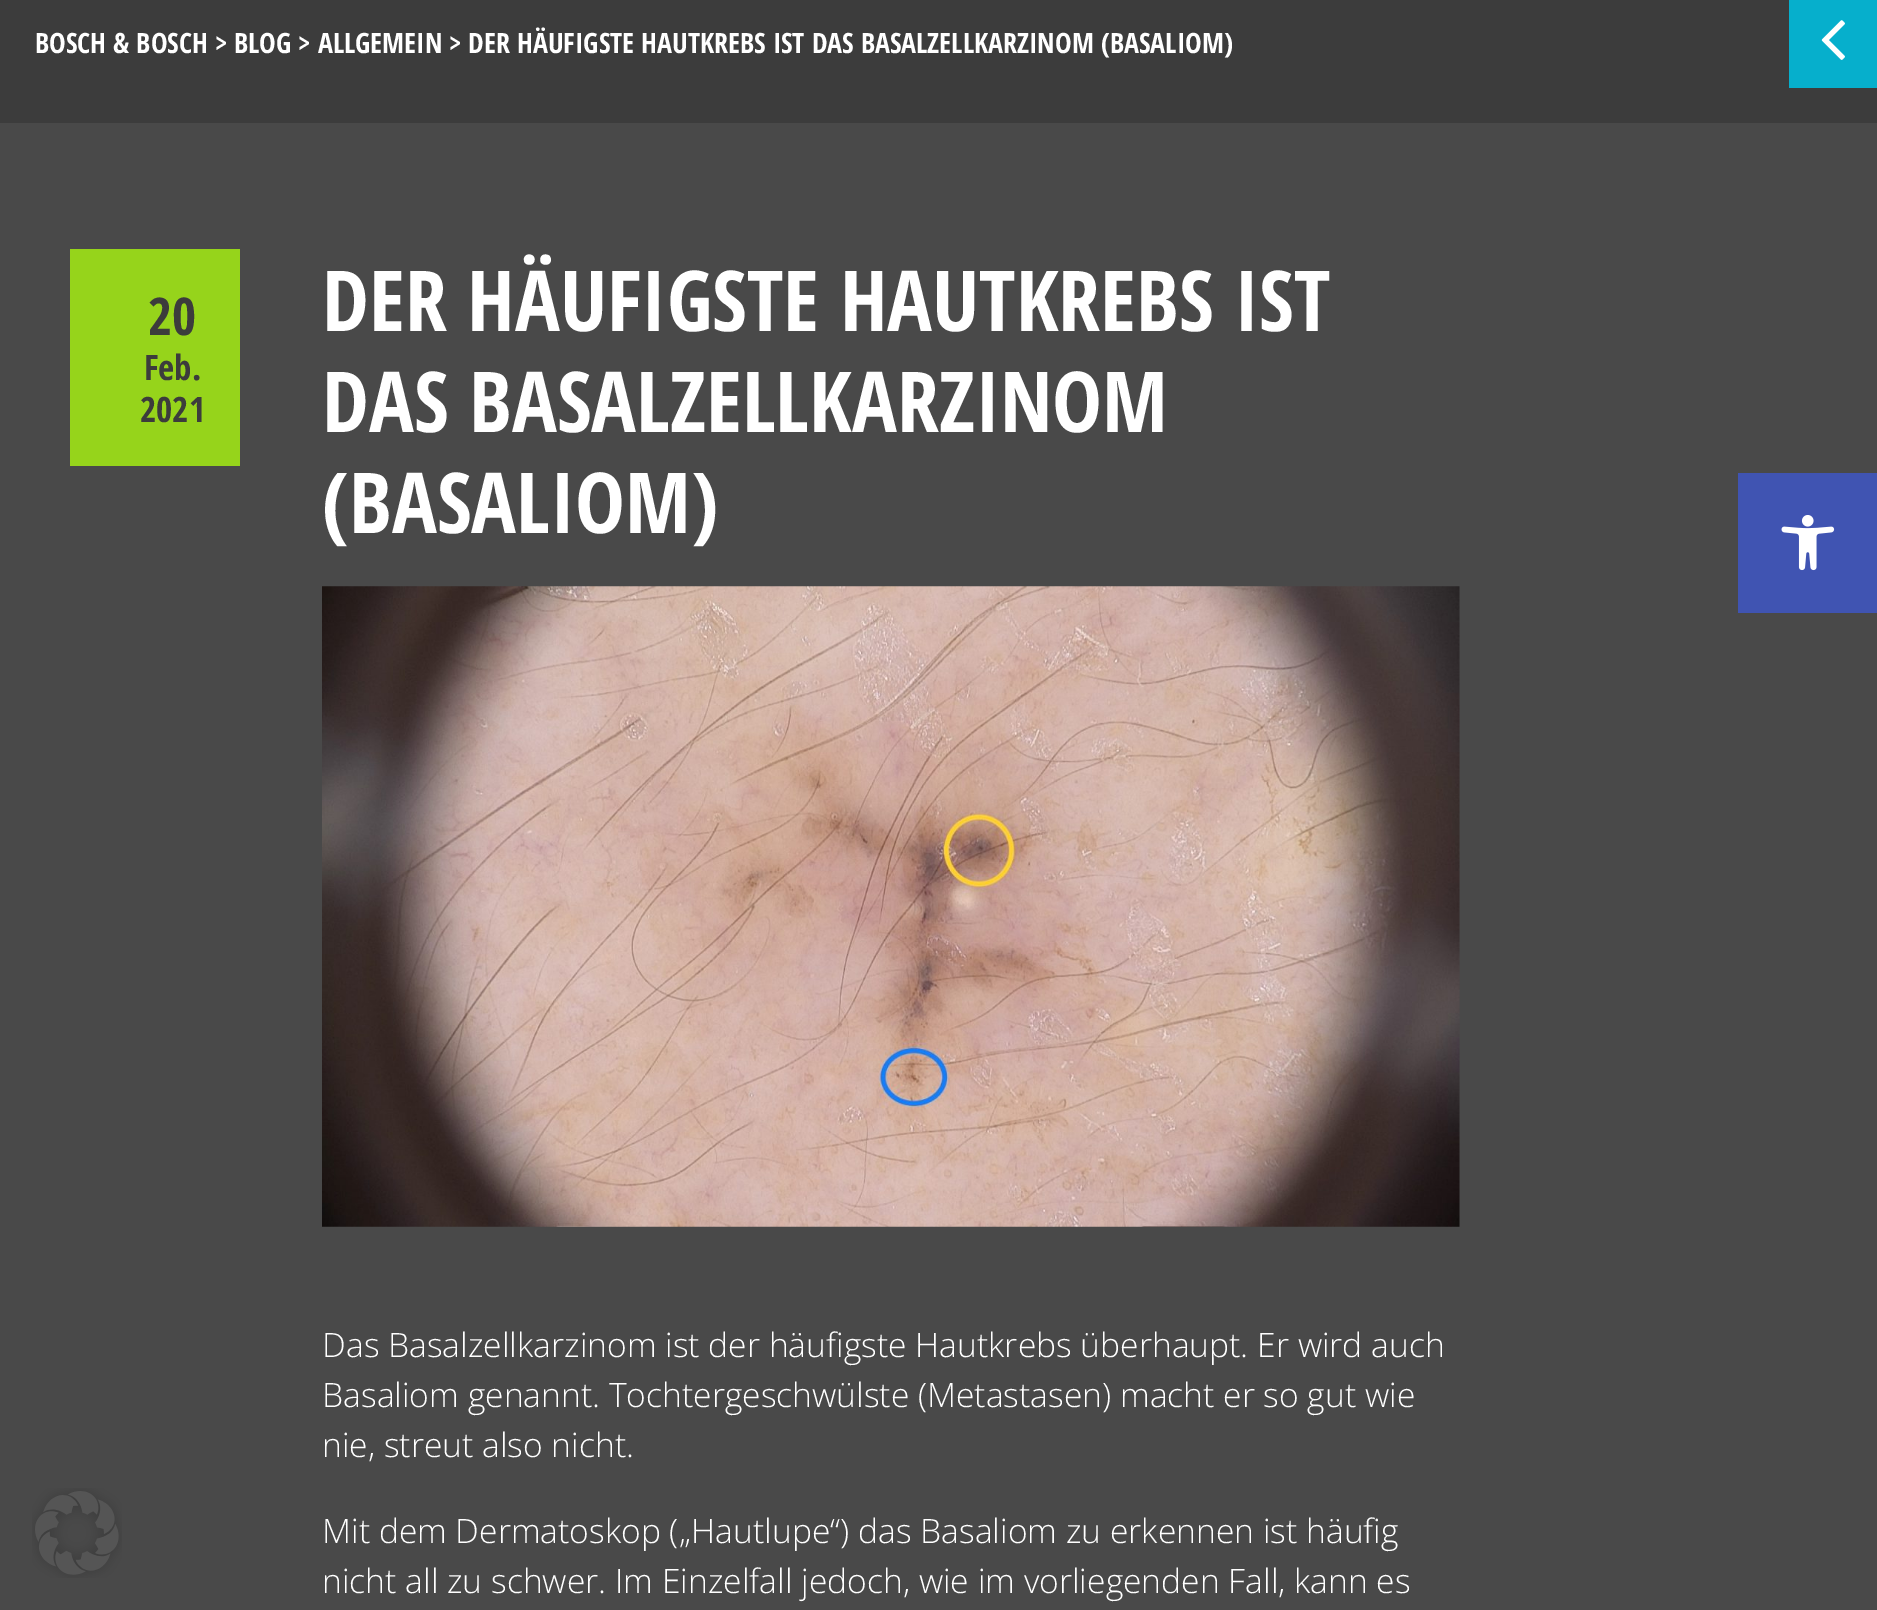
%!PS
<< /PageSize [1877 1610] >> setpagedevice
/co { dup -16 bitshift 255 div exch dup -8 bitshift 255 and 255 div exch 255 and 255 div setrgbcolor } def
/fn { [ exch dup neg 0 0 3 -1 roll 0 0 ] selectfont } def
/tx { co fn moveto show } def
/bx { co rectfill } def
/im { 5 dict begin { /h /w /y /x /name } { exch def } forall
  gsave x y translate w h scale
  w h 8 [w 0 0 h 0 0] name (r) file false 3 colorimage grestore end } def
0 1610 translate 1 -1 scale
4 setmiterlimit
0 0 1877 1610 16#3C3C3C bx
1789 0 88 88 16#06AFCC bx
(media/1.raw) 1821 20 24 40 im
0 123 1877 1487 16#494949 bx
70 249 170 217 16#96D41B bx
(media/2.raw) 322 586 1138 641 im
1738 473 139 140 16#4054B2 bx
(media/3.raw) 1781 515 54 56 im
(media/4.raw) 32 1488 90 90 im
(BOSCH & BOSCH > BLOG > ALLGEMEIN > DER HÄUFIGSTE HAUTKREBS IST DAS BASALZELLKARZINOM \(BASALIOM\)) 35 53 /OpenSansCondensed-Bold 28 16#FFFFFF tx
(20) 148 335 /OpenSansCondensed-Bold 52 16#3C3C3C tx
(Feb.) 144 380 /OpenSansCondensed-Bold 35 16#3C3C3C tx
(2021) 140 422 /OpenSansCondensed-Bold 35 16#3C3C3C tx
(DER HÄUFIGSTE HAUTKREBS IST) 322 331 /OpenSansCondensed-Bold 84 16#FFFFFF tx
(DAS BASALZELLKARZINOM) 322 432 /OpenSansCondensed-Bold 84 16#FFFFFF tx
(\(BASALIOM\)) 322 533 /OpenSansCondensed-Bold 84 16#FFFFFF tx
(Das Basalzellkarzinom ist der häufigste Hautkrebs überhaupt. Er wird auch) 322 1357 /OpenSans-Light 33.6 16#FFFFFF tx
(Basaliom genannt. Tochtergeschwülste \(Metastasen\) macht er so gut wie) 322 1407 /OpenSans-Light 33.6 16#FFFFFF tx
(nie, streut also nicht.) 322 1457 /OpenSans-Light 33.6 16#FFFFFF tx
(Mit dem Dermatoskop \(„Hautlupe“\) das Basaliom zu erkennen ist häufig) 322 1543 /OpenSans-Light 33.6 16#FFFFFF tx
(nicht all zu schwer. Im Einzelfall jedoch, wie im vorliegenden Fall, kann es) 322 1593 /OpenSans-Light 33.6 16#FFFFFF tx
showpage
